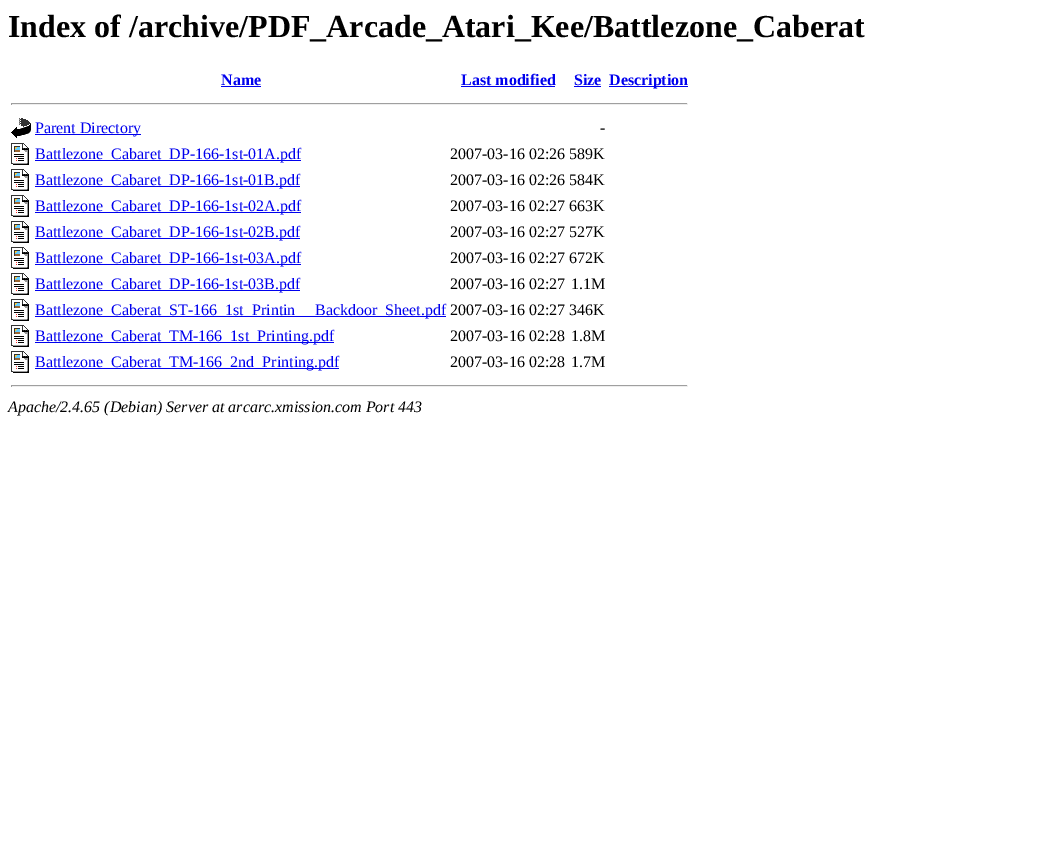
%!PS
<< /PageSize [1056 865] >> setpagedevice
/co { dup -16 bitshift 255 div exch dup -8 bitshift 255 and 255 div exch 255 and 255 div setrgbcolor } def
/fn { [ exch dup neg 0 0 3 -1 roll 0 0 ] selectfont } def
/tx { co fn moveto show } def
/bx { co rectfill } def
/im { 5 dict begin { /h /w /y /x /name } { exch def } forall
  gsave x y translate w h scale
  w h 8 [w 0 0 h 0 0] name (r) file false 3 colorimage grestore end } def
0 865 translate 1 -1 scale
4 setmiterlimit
0 0 1056 865 16#FFFFFF bx
221 86 40 1 16#0000EE bx
461 86 94 1 16#0000EE bx
574 86 27 1 16#0000EE bx
609 86 79 1 16#0000EE bx
11 103 677 1 16#9F9F9F bx
687 103 1 2 16#EEEEEE bx
11 104 677 1 16#EEEEEE bx
11 103 1 2 16#9F9F9F bx
(media/1.raw) 11 118 20 20 im
35 134 106 1 16#0000EE bx
(media/2.raw) 11 143 18 22 im
35 160 266 1 16#0000EE bx
(media/2.raw) 11 169 18 22 im
35 186 265 1 16#0000EE bx
(media/2.raw) 11 195 18 22 im
35 212 266 1 16#0000EE bx
(media/2.raw) 11 221 18 22 im
35 238 265 1 16#0000EE bx
(media/2.raw) 11 247 18 22 im
35 264 266 1 16#0000EE bx
(media/2.raw) 11 273 18 22 im
35 290 265 1 16#0000EE bx
(media/2.raw) 11 299 18 22 im
35 316 411 1 16#0000EE bx
(media/2.raw) 11 325 18 22 im
35 342 299 1 16#0000EE bx
(media/2.raw) 11 351 18 22 im
35 368 304 1 16#0000EE bx
11 385 677 1 16#9F9F9F bx
687 385 1 2 16#EEEEEE bx
11 386 677 1 16#EEEEEE bx
11 385 1 2 16#9F9F9F bx
(Index of /archive/PDF_Arcade_Atari_Kee/Battlezone_Caberat) 8 37 /LiberationSerif-Bold 32 16#000000 tx
(Name) 221 85 /LiberationSerif-Bold 16 16#0000EE tx
(Last modified) 461 85 /LiberationSerif-Bold 16 16#0000EE tx
(Size) 574 85 /LiberationSerif-Bold 16 16#0000EE tx
(Description) 609 85 /LiberationSerif-Bold 16 16#0000EE tx
(Parent Directory) 35 133 /LiberationSerif-Regular 16 16#0000EE tx
(-) 600 133 /LiberationSerif-Regular 16 16#000000 tx
(Battlezone_Cabaret_DP-166-1st-01A.pdf) 35 159 /LiberationSerif-Regular 16 16#0000EE tx
(2007-03-16 02:26 589K) 450 159 /LiberationSerif-Regular 16 16#000000 tx
(Battlezone_Cabaret_DP-166-1st-01B.pdf) 35 185 /LiberationSerif-Regular 16 16#0000EE tx
(2007-03-16 02:26 584K) 450 185 /LiberationSerif-Regular 16 16#000000 tx
(Battlezone_Cabaret_DP-166-1st-02A.pdf) 35 211 /LiberationSerif-Regular 16 16#0000EE tx
(2007-03-16 02:27 663K) 450 211 /LiberationSerif-Regular 16 16#000000 tx
(Battlezone_Cabaret_DP-166-1st-02B.pdf) 35 237 /LiberationSerif-Regular 16 16#0000EE tx
(2007-03-16 02:27 527K) 450 237 /LiberationSerif-Regular 16 16#000000 tx
(Battlezone_Cabaret_DP-166-1st-03A.pdf) 35 263 /LiberationSerif-Regular 16 16#0000EE tx
(2007-03-16 02:27 672K) 450 263 /LiberationSerif-Regular 16 16#000000 tx
(Battlezone_Cabaret_DP-166-1st-03B.pdf) 35 289 /LiberationSerif-Regular 16 16#0000EE tx
(2007-03-16 02:27) 450 289 /LiberationSerif-Regular 16 16#000000 tx
(1.1M) 571 289 /LiberationSerif-Regular 16 16#000000 tx
(Battlezone_Caberat_ST-166_1st_Printin) 35 315 /LiberationSerif-Regular 16 16#0000EE tx
(Backdoor_Sheet.pdf) 315 315 /LiberationSerif-Regular 16 16#0000EE tx
(2007-03-16 02:27 346K) 450 315 /LiberationSerif-Regular 16 16#000000 tx
(Battlezone_Caberat_TM-166_1st_Printing.pdf) 35 341 /LiberationSerif-Regular 16 16#0000EE tx
(2007-03-16 02:28) 450 341 /LiberationSerif-Regular 16 16#000000 tx
(1.8M) 571 341 /LiberationSerif-Regular 16 16#000000 tx
(Battlezone_Caberat_TM-166_2nd_Printing.pdf) 35 367 /LiberationSerif-Regular 16 16#0000EE tx
(2007-03-16 02:28) 450 367 /LiberationSerif-Regular 16 16#000000 tx
(1.7M) 571 367 /LiberationSerif-Regular 16 16#000000 tx
(Apache/2.4.65 \(Debian\) Server at arcarc.xmission.com Port 443) 8 412 /LiberationSerif-Italic 16 16#000000 tx
showpage
